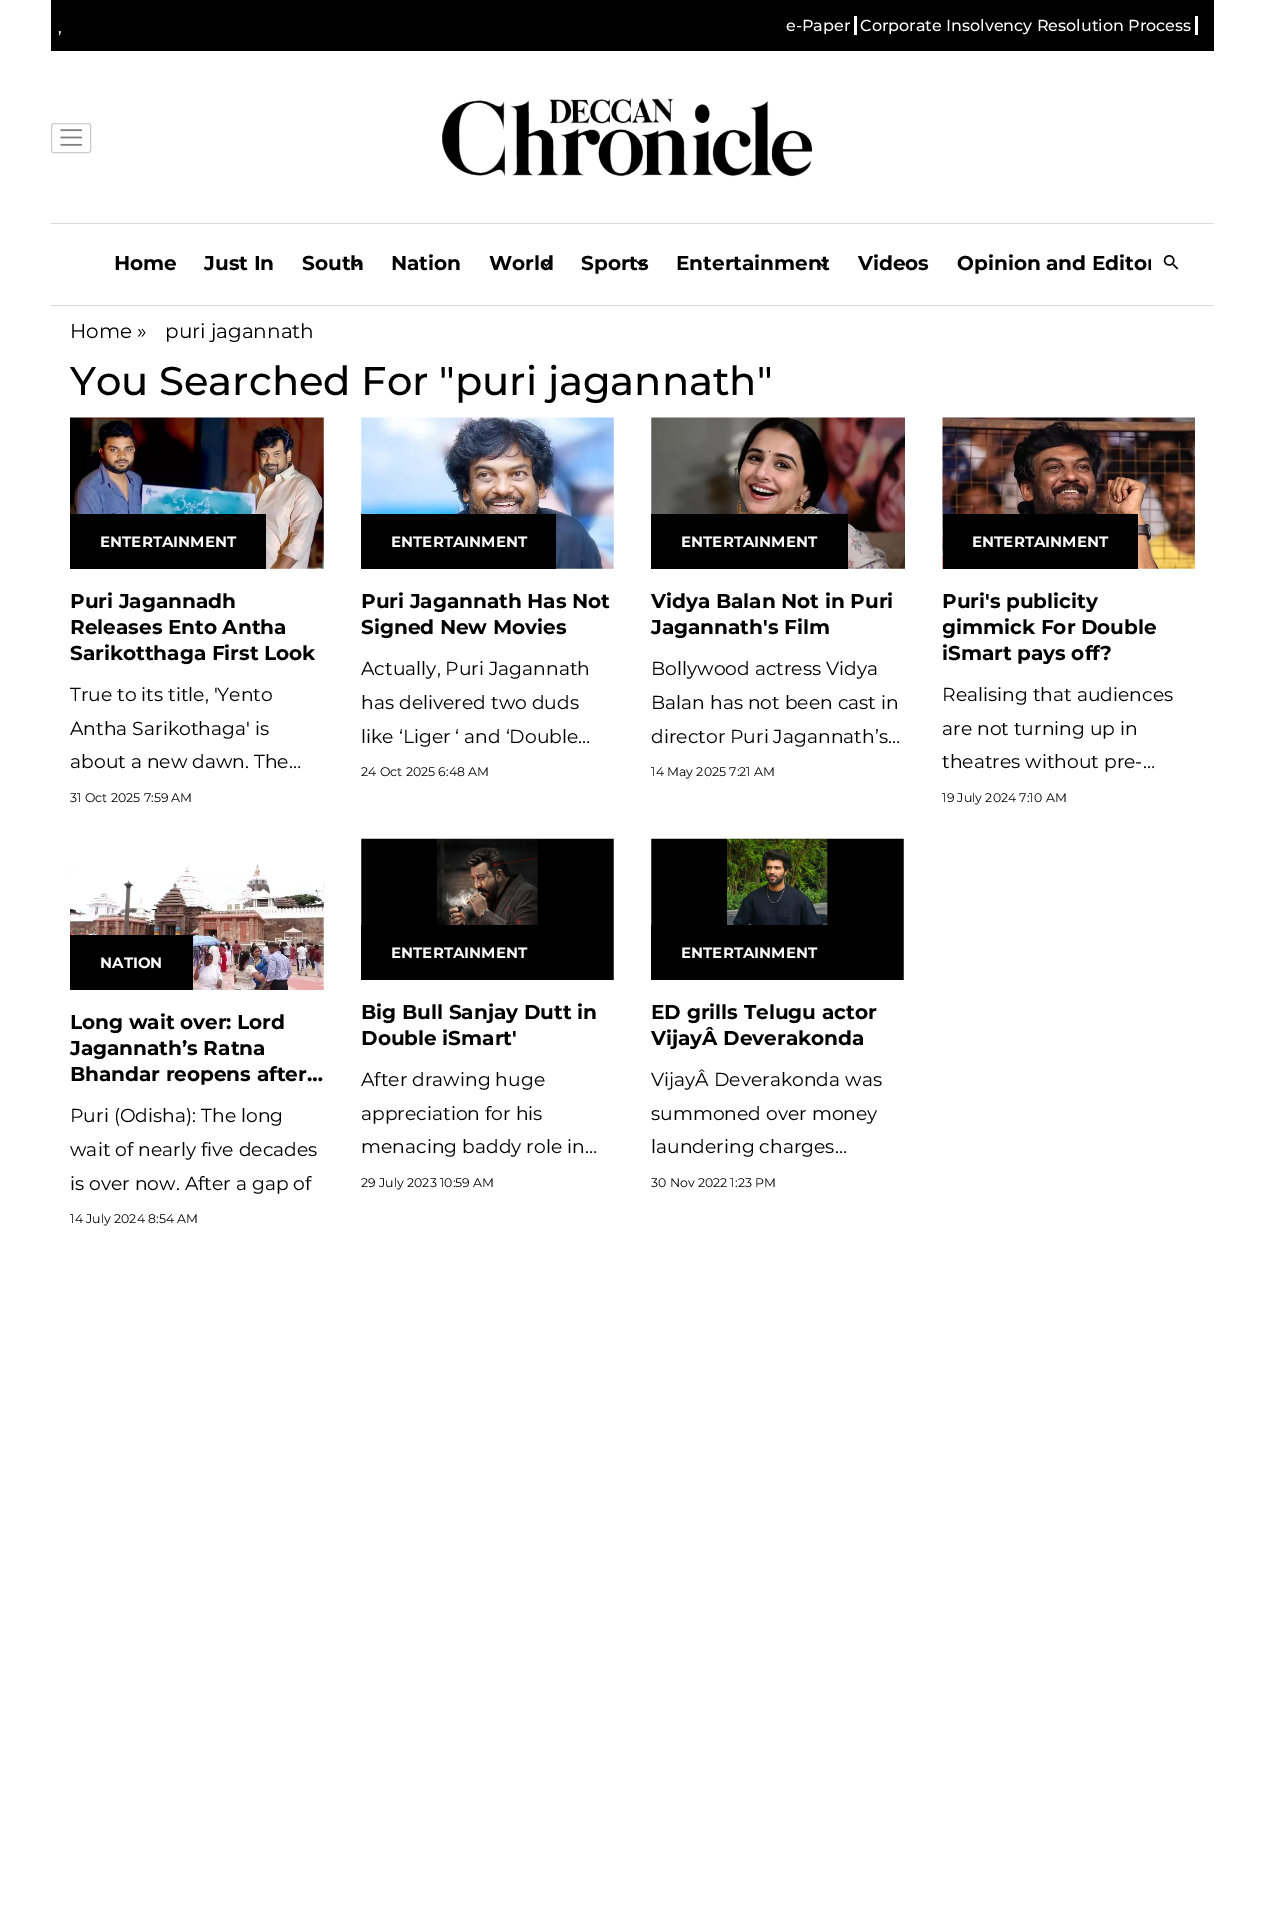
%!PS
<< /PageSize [1264 1922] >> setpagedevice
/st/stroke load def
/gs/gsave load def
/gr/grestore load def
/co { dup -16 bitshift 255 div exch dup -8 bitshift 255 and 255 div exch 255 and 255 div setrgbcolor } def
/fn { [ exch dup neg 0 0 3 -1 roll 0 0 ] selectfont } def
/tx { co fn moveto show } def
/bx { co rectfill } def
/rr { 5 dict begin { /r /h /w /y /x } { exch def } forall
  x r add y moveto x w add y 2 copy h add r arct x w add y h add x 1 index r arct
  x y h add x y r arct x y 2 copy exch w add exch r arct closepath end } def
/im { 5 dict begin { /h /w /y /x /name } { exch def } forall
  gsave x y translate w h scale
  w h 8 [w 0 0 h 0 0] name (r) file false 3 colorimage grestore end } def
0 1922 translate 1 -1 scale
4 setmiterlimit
0 0 1264 1922 16#FFFFFF bx
51 0 1163 51 16#000000 bx
854 16 3 19 16#FFFFFF bx
1195 16 3 19 16#FFFFFF bx
51 223 1163 1 16#DBDBDB bx
(media/1.raw) 60 129 23 17 im
16#CCCCCC co
51.5 123.5 39 29 2 rr st
(media/2.raw) 442 98 371 79 im
51 305 1163 1 16#DBDBDB bx
(media/7.raw) 1163 255 16 15 im
(media/8.raw) 70 417 254 152 im
70 514 196 55 16#000000 bx
(media/9.raw) 361 417 253 152 im
361 514 195 55 16#000000 bx
(media/10.raw) 651 417 254 152 im
651 514 197 55 16#000000 bx
(media/11.raw) 942 417 253 152 im
943 514 195 55 16#000000 bx
(media/12.raw) 70 864 254 126 im
70 935 123 55 16#000000 bx
(media/13.raw) 361 838 253 142 im
361 925 177 55 16#000000 bx
(media/14.raw) 651 838 253 142 im
651 925 177 55 16#000000 bx
(,) 58 33 /Montserrat-Medium 16 16#FFFFFF tx
(e-Paper) 786 31 /Montserrat-Medium 16 16#FFFFFF tx
(Corporate Insolvency Resolution Process) 860 31 /Montserrat-Medium 16 16#FFFFFF tx
(Home) 114 270 /Montserrat-Bold 20 16#000000 tx
(Just In) 204 270 /Montserrat-Bold 20 16#000000 tx
(South) 302 270 /Montserrat-Bold 20 16#000000 tx
(media/3.raw) 351 261 9 6 im
(Nation) 391 270 /Montserrat-Bold 20 16#000000 tx
(World) 489 270 /Montserrat-Bold 20 16#000000 tx
(media/4.raw) 541 261 8 6 im
(Sports) 581 270 /Montserrat-Bold 20 16#000000 tx
(media/5.raw) 636 261 11 6 im
(Entertainment) 676 270 /Montserrat-Bold 20 16#000000 tx
(media/6.raw) 819 261 9 6 im
(Videos) 858 270 /Montserrat-Bold 20 16#000000 tx
gs
114 224 1037 81 rectclip
(Opinion and Editor) 957 270 /Montserrat-Bold 20 16#000000 tx
gr
(Home ») 70 338 /Montserrat-Regular 20 16#000000 tx
(puri jagannath) 165 338 /Montserrat-Regular 20 16#000000 tx
(You Searched For "puri jagannath") 70 395 /Montserrat-Medium 40 16#000000 tx
(ENTERTAINMENT) 100 547 /Montserrat-Bold 15 16#FFFFFF tx
(Puri Jagannadh) 70 608 /Montserrat-Bold 20 16#000000 tx
(Releases Ento Antha) 70 634 /Montserrat-Bold 20 16#000000 tx
(Sarikotthaga First Look) 70 660 /Montserrat-Bold 20 16#000000 tx
(True to its title, 'Yento) 70 701 /Montserrat-Regular 18.75 16#000000 tx
(Antha Sarikothaga' is) 70 735 /Montserrat-Regular 18.75 16#000000 tx
(about a new dawn. The…) 70 768 /Montserrat-Regular 18.75 16#000000 tx
(31 Oct 2025 7:59 AM) 70 802 /Montserrat-Regular 12.5 16#000000 tx
(ENTERTAINMENT) 391 547 /Montserrat-Bold 15 16#FFFFFF tx
(Puri Jagannath Has Not) 361 608 /Montserrat-Bold 20 16#000000 tx
(Signed New Movies) 361 634 /Montserrat-Bold 20 16#000000 tx
(Actually, Puri Jagannath) 361 675 /Montserrat-Regular 18.75 16#000000 tx
(has delivered two duds) 361 709 /Montserrat-Regular 18.75 16#000000 tx
(like ‘Liger ‘ and ‘Double…) 361 743 /Montserrat-Regular 18.75 16#000000 tx
(24 Oct 2025 6:48 AM) 361 776 /Montserrat-Regular 12.5 16#000000 tx
(ENTERTAINMENT) 681 547 /Montserrat-Bold 15 16#FFFFFF tx
(Vidya Balan Not in Puri) 651 608 /Montserrat-Bold 20 16#000000 tx
(Jagannath's Film) 651 634 /Montserrat-Bold 20 16#000000 tx
(Bollywood actress Vidya) 651 675 /Montserrat-Regular 18.75 16#000000 tx
(Balan has not been cast in) 651 709 /Montserrat-Regular 18.75 16#000000 tx
(director Puri Jagannath’s…) 651 743 /Montserrat-Regular 18.75 16#000000 tx
(14 May 2025 7:21 AM) 651 776 /Montserrat-Regular 12.5 16#000000 tx
(ENTERTAINMENT) 972 547 /Montserrat-Bold 15 16#FFFFFF tx
(Puri's publicity) 942 608 /Montserrat-Bold 20 16#000000 tx
gs
943 589 252 79 rectclip
(gimmick For Double) 942 634 /Montserrat-Bold 20 16#000000 tx
gr
(iSmart pays off?) 942 660 /Montserrat-Bold 20 16#000000 tx
(Realising that audiences) 942 701 /Montserrat-Regular 18.75 16#000000 tx
(are not turning up in) 942 735 /Montserrat-Regular 18.75 16#000000 tx
(theatres without pre-…) 942 768 /Montserrat-Regular 18.75 16#000000 tx
(19 July 2024 7:10 AM) 942 802 /Montserrat-Regular 12.5 16#000000 tx
(NATION) 100 968 /Montserrat-Bold 15 16#FFFFFF tx
(Long wait over: Lord) 70 1029 /Montserrat-Bold 20 16#000000 tx
(Jagannath’s Ratna) 70 1055 /Montserrat-Bold 20 16#000000 tx
(Bhandar reopens after…) 70 1081 /Montserrat-Bold 20 16#000000 tx
(Puri \(Odisha\): The long) 70 1122 /Montserrat-Regular 18.75 16#000000 tx
(wait of nearly five decades) 70 1156 /Montserrat-Regular 18.75 16#000000 tx
(is over now. After a gap of) 70 1190 /Montserrat-Regular 18.75 16#000000 tx
(14 July 2024 8:54 AM) 70 1223 /Montserrat-Regular 12.5 16#000000 tx
(ENTERTAINMENT) 391 958 /Montserrat-Bold 15 16#FFFFFF tx
(Big Bull Sanjay Dutt in) 361 1019 /Montserrat-Bold 20 16#000000 tx
(Double iSmart') 361 1045 /Montserrat-Bold 20 16#000000 tx
(After drawing huge) 361 1086 /Montserrat-Regular 18.75 16#000000 tx
(appreciation for his) 361 1120 /Montserrat-Regular 18.75 16#000000 tx
(menacing baddy role in…) 361 1153 /Montserrat-Regular 18.75 16#000000 tx
(29 July 2023 10:59 AM) 361 1187 /Montserrat-Regular 12.5 16#000000 tx
(ENTERTAINMENT) 681 958 /Montserrat-Bold 15 16#FFFFFF tx
(ED grills Telugu actor) 651 1019 /Montserrat-Bold 20 16#000000 tx
(VijayÂ Deverakonda) 651 1045 /Montserrat-Bold 20 16#000000 tx
(VijayÂ Deverakonda was) 651 1086 /Montserrat-Regular 18.75 16#000000 tx
(summoned over money) 651 1120 /Montserrat-Regular 18.75 16#000000 tx
(laundering charges…) 651 1153 /Montserrat-Regular 18.75 16#000000 tx
(30 Nov 2022 1:23 PM) 651 1187 /Montserrat-Regular 12.5 16#000000 tx
showpage
